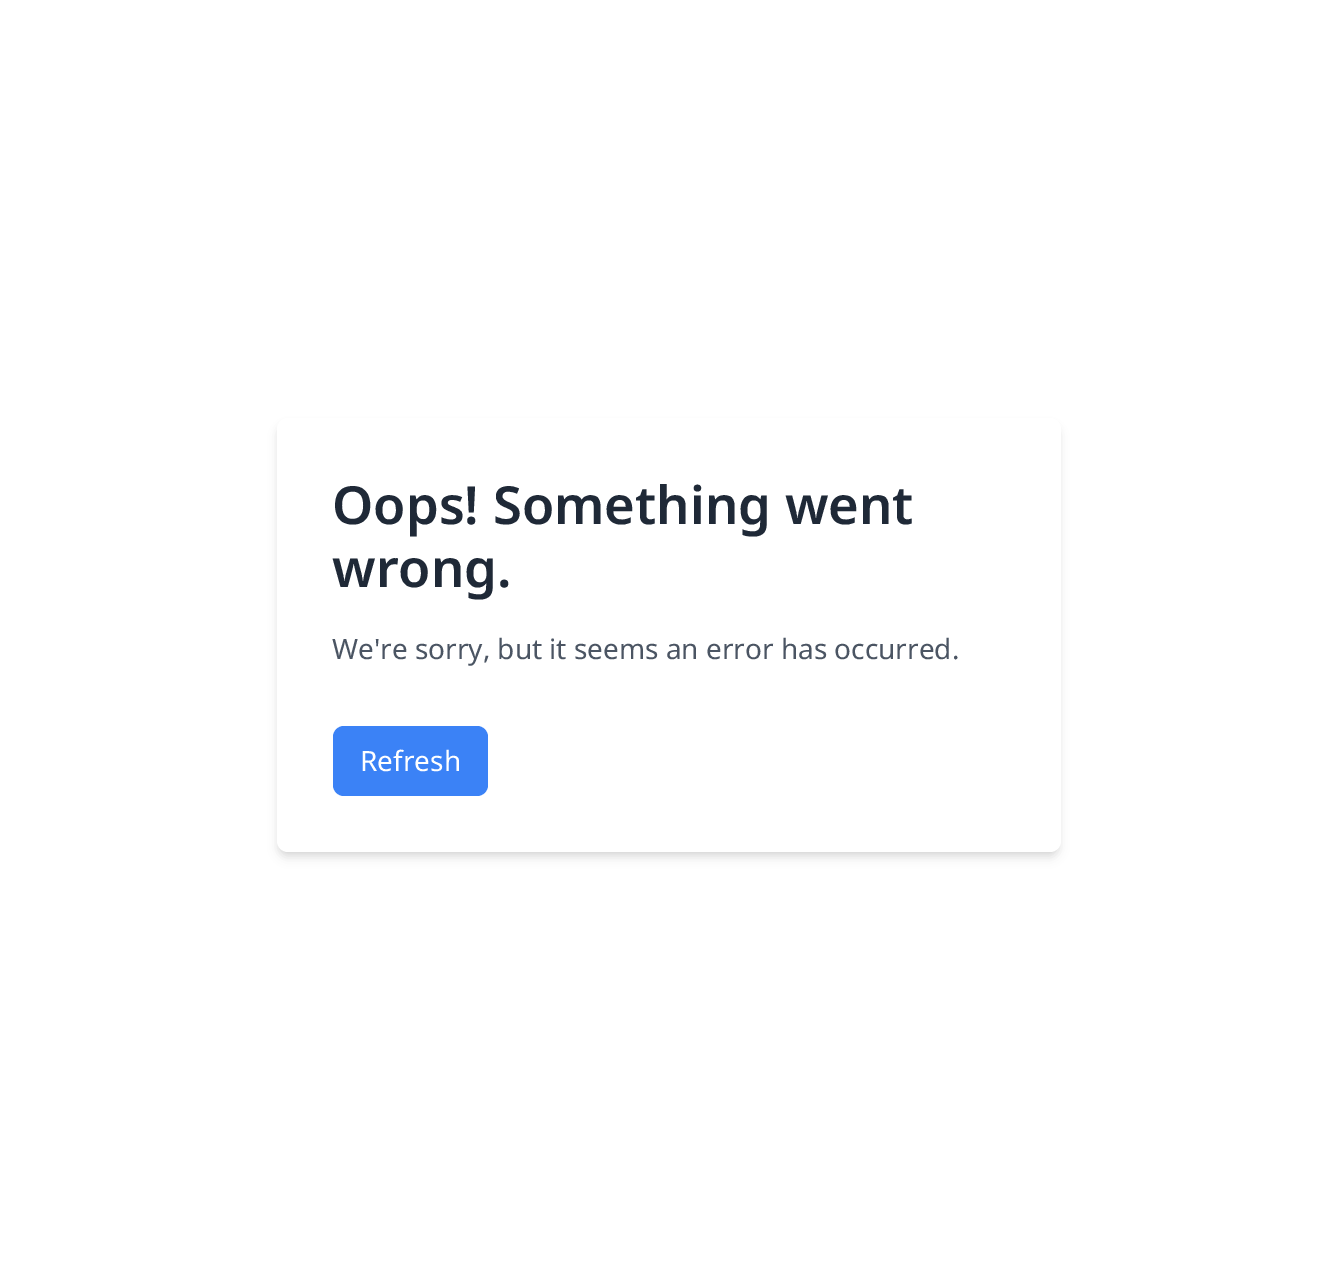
%!PS
<< /PageSize [1335 1268] /PageUsesTransparency true >> setpagedevice
/fl/fill load def
/co { dup -16 bitshift 255 div exch dup -8 bitshift 255 and 255 div exch 255 and 255 div setrgbcolor } def
/fn { [ exch dup neg 0 0 3 -1 roll 0 0 ] selectfont } def
/tx { co fn moveto show } def
/bx { co rectfill } def
/al { dup .setfillconstantalpha .setstrokeconstantalpha } def
/rr { 5 dict begin { /r /h /w /y /x } { exch def } forall
  x r add y moveto x w add y 2 copy h add r arct x w add y h add x 1 index r arct
  x y h add x y r arct x y 2 copy exch w add exch r arct closepath end } def
/sh { 12 dict begin { /a /b /q /h /w /y /x } { exch def } forall gsave /was 0 def
  9 -2 -9 { dup b mul 4 div /e exch def 1 sub .425 mul 2.718 exch exp 1 add a .99 .min exch div /now exch def
    1 1 now sub 1 was sub div sub al /was now def
    w h .min e 2 mul add 0 gt { x e sub y e sub w e 2 mul add h e 2 mul add
      q e add b .6 mul add w h .min 2 div e add .min 0 .max rr fill } if } for grestore end } def
0 .pushpdf14devicefilter
0 1268 translate 1 -1 scale
4 setmiterlimit
0 0 1335 1268 16#FFFFFF bx
16#000000 co
280 425 777 427 7 3.5 .1 sh
278 427 781 431 9 5 .1 sh
16#FFFFFF co
277 418 784 434 11 rr fl
16#3B82F6 co
333 726 155 70 11 rr fl
(Oops! Something went) 332 524 /NotoSans-SemiBold 52.5 16#1F2937 tx
(wrong.) 332 587 /NotoSans-SemiBold 52.5 16#1F2937 tx
(We're sorry, but it seems an error has occurred.) 332 659 /NotoSans-Regular 28 16#4B5563 tx
(Refresh) 360 771 /NotoSans-Regular 28 16#FFFFFF tx
.poppdf14devicefilter showpage
